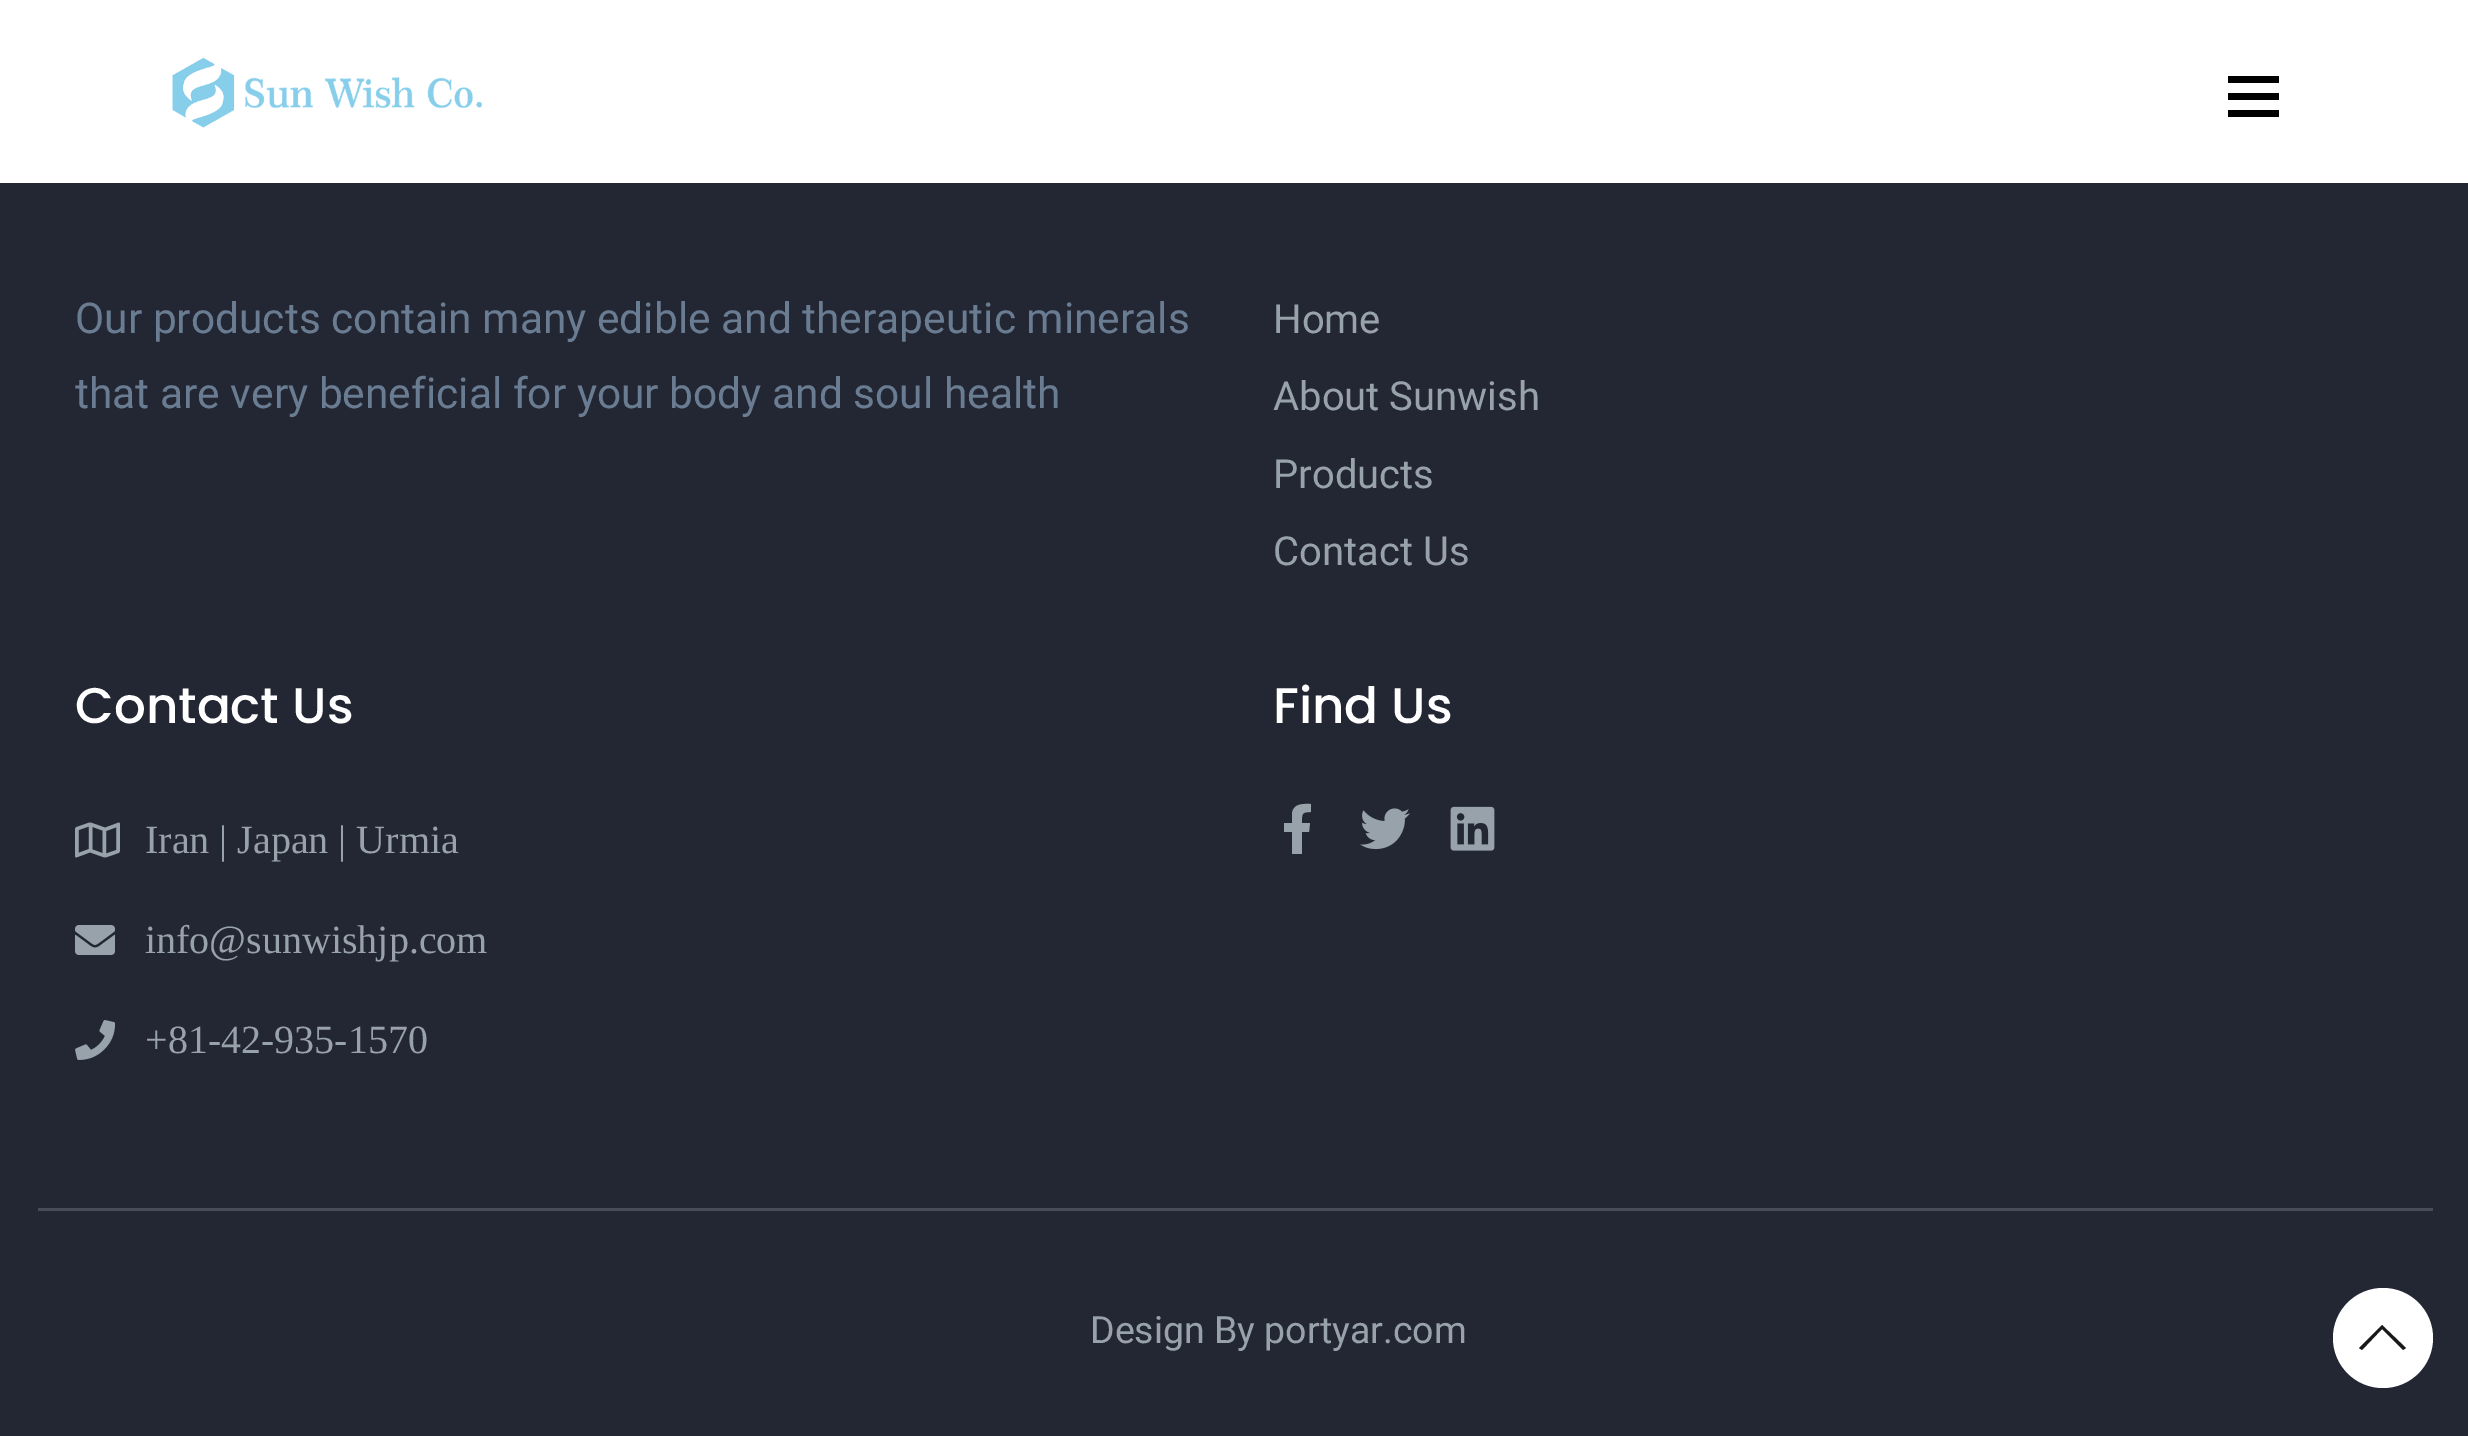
%!PS
<< /PageSize [2468 1436] >> setpagedevice
/mt/moveto load def
/li/lineto load def
/ct/curveto load def
/cp/closepath load def
/fl/fill load def
/co { dup -16 bitshift 255 div exch dup -8 bitshift 255 and 255 div exch 255 and 255 div setrgbcolor } def
/fn { [ exch dup neg 0 0 3 -1 roll 0 0 ] selectfont } def
/tx { co fn moveto show } def
/bx { co rectfill } def
/ci { newpath 0 360 arc closepath } def
/im { 5 dict begin { /h /w /y /x /name } { exch def } forall
  gsave x y translate w h scale
  w h 8 [w 0 0 h 0 0] name (r) file false 3 colorimage grestore end } def
0 1436 translate 1 -1 scale
4 setmiterlimit
0 0 2468 1436 16#232733 bx
0 0 2468 183 16#FFFFFF bx
(media/1.raw) 172 57 310 71 im
16#000000 co
2279 76 mt 2279 83 li 2228 83 li 2228 76 li cp 2228 100 mt 2279 100 li 2279 93 li 2228 93 li cp 2228 117 mt 2279 117 li 2279 110 li 2228 110 li cp fl
(media/2.raw) 75 822 45 36 im
(media/3.raw) 75 925 40 30 im
(media/4.raw) 75 1020 41 40 im
16#98A2AA co
1309 832 mt 1302 832 li 1302 854 li 1292 854 li 1292 832 li 1284 832 li 1284 823 li 1292 823 li 1292 813 li 1294 803 1303 804 1311 804 ct 1311 812 li 1301 812 1302 814 1302 823 ct 1310 823 li cp fl
(media/5.raw) 1360 808 50 42 im
(media/6.raw) 1450 806 45 45 im
38 1208 2395 3 16#484C56 bx
16#FFFFFF co
2383 1338 50 ci fl
16#191919 co
2406 1348 mt 2403 1350 li 2382 1329 li 2362 1350 li 2359 1348 li 2382 1325 li cp fl
(Our products contain many edible and therapeutic minerals) 75 333 /Roboto-Regular 42.5 16#6A7C92 tx
(that are very beneficial for your body and soul health) 75 408 /Roboto-Regular 42.5 16#6A7C92 tx
(Home) 1273 333 /Roboto-Regular 40 16#98A2AA tx
(About Sunwish) 1273 410 /Roboto-Regular 40 16#98A2AA tx
(Products) 1273 488 /Roboto-Regular 40 16#98A2AA tx
(Contact Us) 1273 565 /Roboto-Regular 40 16#98A2AA tx
(Contact Us) 75 723 /Poppins-Medium 50 16#FFFFFF tx
(Iran | Japan | Urmia) 145 853 /LiberationSerif-Regular 40 16#98A2AA tx
(info@sunwishjp.com) 145 953 /LiberationSerif-Regular 40 16#98A2AA tx
(+81-42-935-1570) 145 1053 /LiberationSerif-Regular 40 16#98A2AA tx
(Find Us) 1273 723 /Poppins-Medium 50 16#FFFFFF tx
(Design By portyar.com) 1090 1343 /Roboto-Regular 37.5 16#98A2AA tx
showpage
